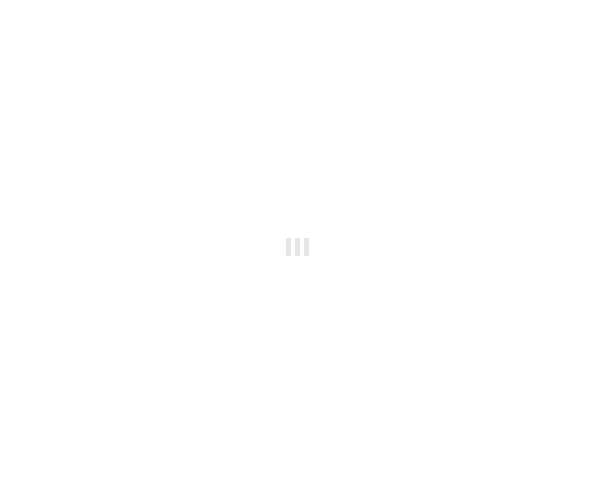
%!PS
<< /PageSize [601 504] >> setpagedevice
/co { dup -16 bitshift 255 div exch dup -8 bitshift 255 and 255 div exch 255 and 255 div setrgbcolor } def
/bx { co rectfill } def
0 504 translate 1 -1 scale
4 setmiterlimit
0 0 601 504 16#FFFFFF bx
286 238 5 18 16#E6E6E6 bx
295 238 5 18 16#E6E6E6 bx
304 238 5 18 16#E6E6E6 bx
showpage
